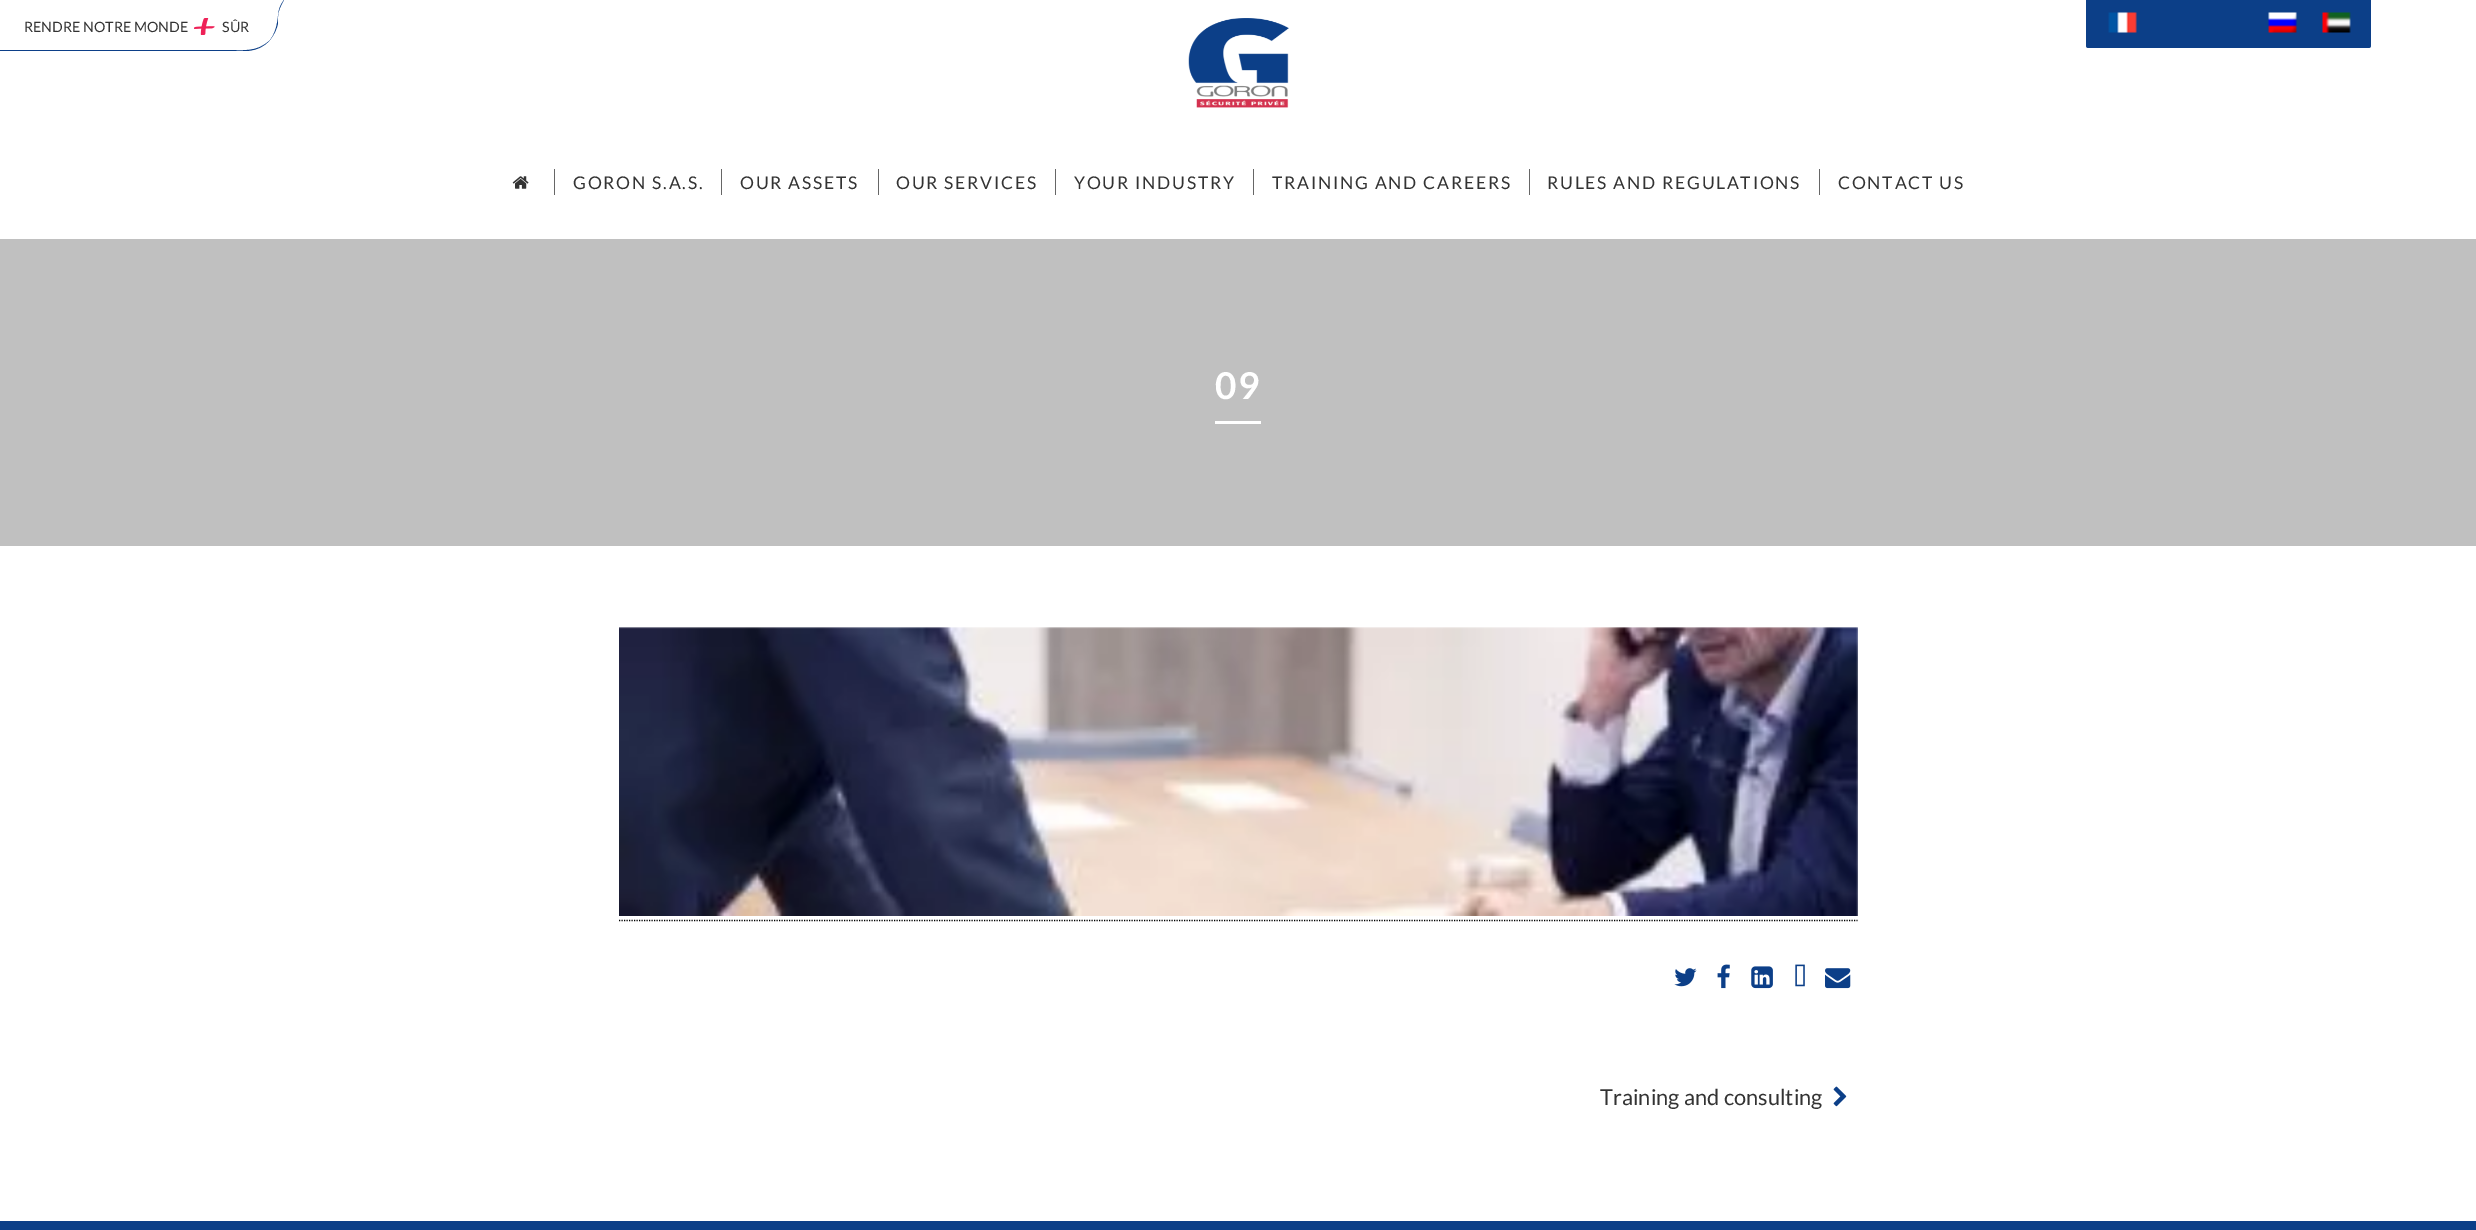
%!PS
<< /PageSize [2476 1230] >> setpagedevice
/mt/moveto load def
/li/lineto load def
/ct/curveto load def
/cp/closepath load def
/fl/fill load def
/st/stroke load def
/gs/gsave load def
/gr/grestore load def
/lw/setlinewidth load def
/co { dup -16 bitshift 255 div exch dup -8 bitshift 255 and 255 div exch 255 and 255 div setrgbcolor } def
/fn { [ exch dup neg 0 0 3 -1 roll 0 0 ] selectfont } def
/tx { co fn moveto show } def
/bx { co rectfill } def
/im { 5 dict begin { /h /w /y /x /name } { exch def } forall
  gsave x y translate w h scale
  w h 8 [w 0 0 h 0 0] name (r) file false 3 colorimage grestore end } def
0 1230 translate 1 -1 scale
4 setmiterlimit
0 0 2476 1230 16#FFFFFF bx
gs
0 0 285 51 rectclip
16#0C3F88 co
0 50 mt 224 50 li 242 50 257 53 270 40 ct 274 35 276 29 277 23 ct 279 14 277 9 284 0 ct 281 5 278 11 278 17 ct 278 23 li 277 29 274 35 270 40 ct 258 54 242 51 224 51 ct 0 51 li cp fl
gr
(media/1.raw) 194 18 21 17 im
16#0C3F88 co
2086 0 mt 2371 0 li 2371 45.5 li 2371 47 2370 48 2368.5 48 ct 2088.5 48 li 2087 48 2086 47 2086 45.5 ct cp fl
(media/2.raw) 2108 12 29 21 im
(media/3.raw) 2268 12 29 21 im
(media/4.raw) 2322 12 29 21 im
(media/5.raw) 1188 18 101 90 im
554 169 1 26 16#666666 bx
(media/6.raw) 512 176 17 13 im
721 169 1 26 16#666666 bx
878 169 1 26 16#666666 bx
1055 169 1 26 16#666666 bx
1253 169 1 26 16#666666 bx
1529 169 1 26 16#666666 bx
1819 169 1 26 16#666666 bx
0 239 2476 307 16#C0C0C0 bx
1215 421 46 3 16#FFFFFF bx
(media/7.raw) 619 627 1239 289 im
16#000000 co
1.2 lw
[1.25 1.25] 0 setdash
619 920.5 mt 1857.5 920.5 li st
(media/8.raw) 1674 968 23 19 im
(media/9.raw) 1717 964 13 25 im
(media/10.raw) 1751 966 22 23 im
(media/11.raw) 1795 964 10 23 im
(media/12.raw) 1825 968 26 21 im
(media/13.raw) 1833 1086 14 21 im
0 1221 2476 9 16#0C3F88 bx
(RENDRE NOTRE MONDE) 24 32 /Lato-Regular 14.25 16#333333 tx
(SÛR) 222 32 /Lato-Regular 14.25 16#333333 tx
/Lato-Regular 17.5 fn
573 189 mt 1.75 0 (GORON S.A.S.) ashow
740 189 mt 1.75 0 (OUR ASSETS) ashow
896 189 mt 1.75 0 (OUR SERVICES) ashow
1074 189 mt 1.75 0 (YOUR INDUSTRY) ashow
1272 189 mt 1.75 0 (TRAINING AND CAREERS) ashow
1547 189 mt 1.75 0 (RULES AND REGULATIONS) ashow
1838 189 mt 1.75 0 (CONTACT US) ashow
/Lato-Bold 37 fn
16#FFFFFF co
1215 399 mt 2 0 (09) ashow
(Training and consulting) 1600 1105 /Lato-Regular 21.9 16#333333 tx
showpage
